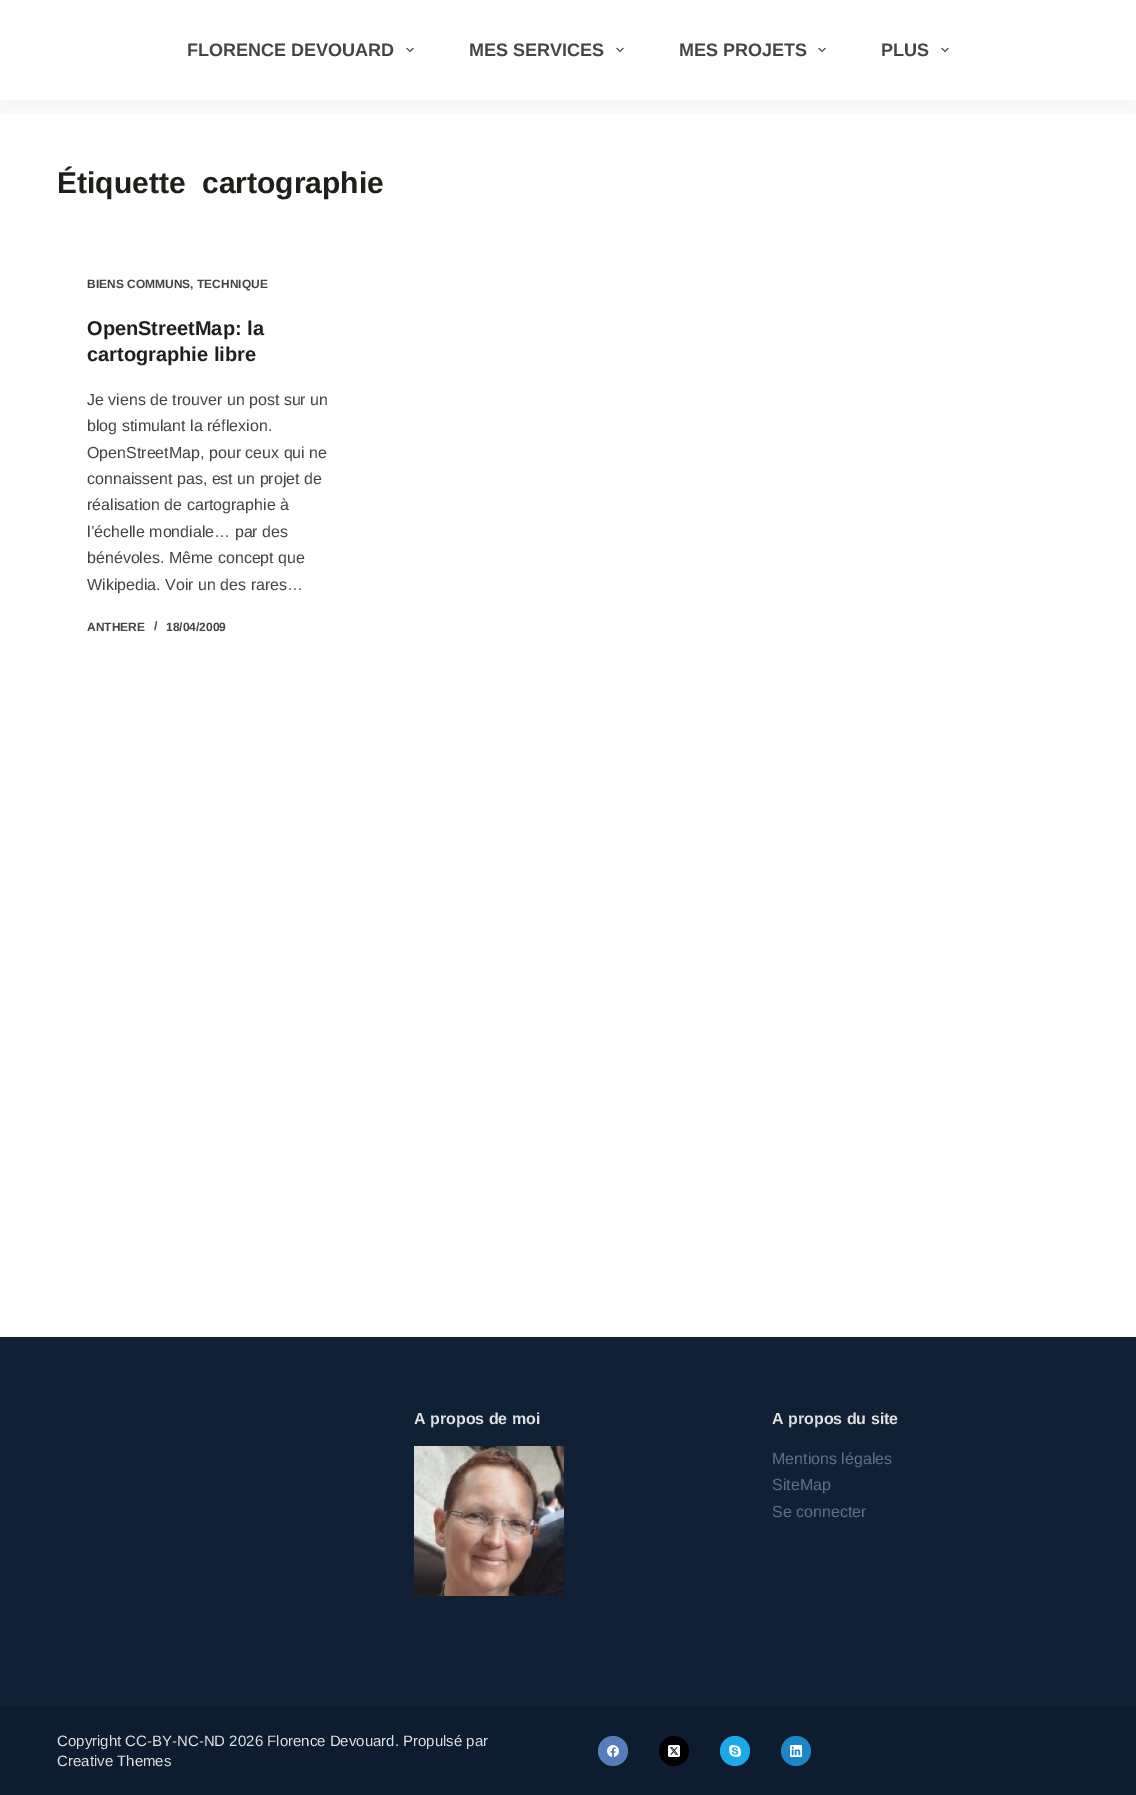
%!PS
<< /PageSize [1136 1795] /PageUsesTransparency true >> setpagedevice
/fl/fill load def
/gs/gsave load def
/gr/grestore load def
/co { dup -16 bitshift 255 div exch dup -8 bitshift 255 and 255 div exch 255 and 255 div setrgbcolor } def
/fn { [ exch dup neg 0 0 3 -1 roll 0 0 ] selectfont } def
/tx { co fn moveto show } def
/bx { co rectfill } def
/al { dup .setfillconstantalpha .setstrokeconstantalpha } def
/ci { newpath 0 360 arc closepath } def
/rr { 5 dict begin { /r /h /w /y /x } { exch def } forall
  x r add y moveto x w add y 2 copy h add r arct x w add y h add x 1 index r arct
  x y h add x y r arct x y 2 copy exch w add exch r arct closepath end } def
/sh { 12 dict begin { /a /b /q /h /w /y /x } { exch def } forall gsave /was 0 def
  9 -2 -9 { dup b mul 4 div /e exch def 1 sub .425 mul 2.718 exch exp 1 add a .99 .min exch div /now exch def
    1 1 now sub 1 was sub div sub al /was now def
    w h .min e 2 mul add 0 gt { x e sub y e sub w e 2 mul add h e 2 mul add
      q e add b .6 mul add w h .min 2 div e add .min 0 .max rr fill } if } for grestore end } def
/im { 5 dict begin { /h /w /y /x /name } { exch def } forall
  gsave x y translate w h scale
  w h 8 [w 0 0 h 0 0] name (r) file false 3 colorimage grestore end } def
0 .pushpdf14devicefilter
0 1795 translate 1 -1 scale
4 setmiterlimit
0 0 1136 1795 16#FFFFFF bx
gs
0 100 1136 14 rectclip
16#2B3D50 co
0 10 1136 100 0 10 .06 sh
gr
(media/1.raw) 406 47 8 6 im
(media/1.raw) 616 47 8 6 im
(media/1.raw) 818 47 8 6 im
(media/1.raw) 941 47 8 6 im
0 1337 1136 369 16#102136 bx
(media/2.raw) 414 1446 150 150 im
0 1706 1136 89 16#0D1C2F bx
16#557DBC co
613 1751 15 ci fl
(media/3.raw) 607 1745 12 12 im
16#000000 co
674 1751 15 ci fl
(media/4.raw) 668 1745 12 12 im
16#1CAAE7 co
735 1751 15 ci fl
(media/5.raw) 729 1745 12 12 im
16#1C86C6 co
796 1751 15 ci fl
(media/6.raw) 790 1745 12 12 im
(FLORENCE DEVOUARD) 187 56 /LiberationSans-Bold 18 16#444444 tx
(MES SERVICES) 469 56 /LiberationSans-Bold 18 16#444444 tx
(MES PROJETS) 679 56 /LiberationSans-Bold 18 16#444444 tx
(PLUS) 881 56 /LiberationSans-Bold 18 16#444444 tx
(Étiquette) 57 193 /LiberationSans-Bold 30 16#211F1C tx
(cartographie) 202 193 /LiberationSans-Bold 30 16#211F1C tx
(BIENS COMMUNS, TECHNIQUE) 87 288 /LiberationSans-Bold 12 16#444444 tx
(OpenStreetMap: la) 87 335 /LiberationSans-Bold 20 16#211F1C tx
(cartographie libre) 87 361 /LiberationSans-Bold 20 16#211F1C tx
(Je viens de trouver un post sur un) 87 405 /LiberationSans-Regular 16 16#444444 tx
(blog stimulant la réflexion.) 87 431 /LiberationSans-Regular 16 16#444444 tx
(OpenStreetMap, pour ceux qui ne) 87 458 /LiberationSans-Regular 16 16#444444 tx
(connaissent pas, est un projet de) 87 484 /LiberationSans-Regular 16 16#444444 tx
(réalisation de cartographie à) 87 510 /LiberationSans-Regular 16 16#444444 tx
(l’échelle mondiale… par des) 87 537 /LiberationSans-Regular 16 16#444444 tx
(bénévoles. Même concept que) 87 563 /LiberationSans-Regular 16 16#444444 tx
(Wikipedia. Voir un des rares…) 87 590 /LiberationSans-Regular 16 16#444444 tx
(ANTHERE) 87 631 /LiberationSans-Bold 12 16#444444 tx
(/) 154 630 /LiberationSans-Bold 12 16#444444 tx
(18/04/2009) 166 631 /LiberationSans-Bold 12 16#444444 tx
(A propos de moi) 414 1424 /LiberationSans-Bold 16 16#E0E0E0 tx
(A propos du site) 772 1424 /LiberationSans-Bold 16 16#E0E0E0 tx
(Mentions légales) 772 1464 /LiberationSans-Regular 16 16#5E7086 tx
(SiteMap) 772 1490 /LiberationSans-Regular 16 16#5E7086 tx
(Se connecter) 772 1517 /LiberationSans-Regular 16 16#5E7086 tx
(Copyright CC-BY-NC-ND 2026 Florence Devouard. Propulsé par) 57 1746 /LiberationSans-Regular 15 16#E0E0E0 tx
(Creative Themes) 57 1766 /LiberationSans-Regular 15 16#E0E0E0 tx
.poppdf14devicefilter showpage
